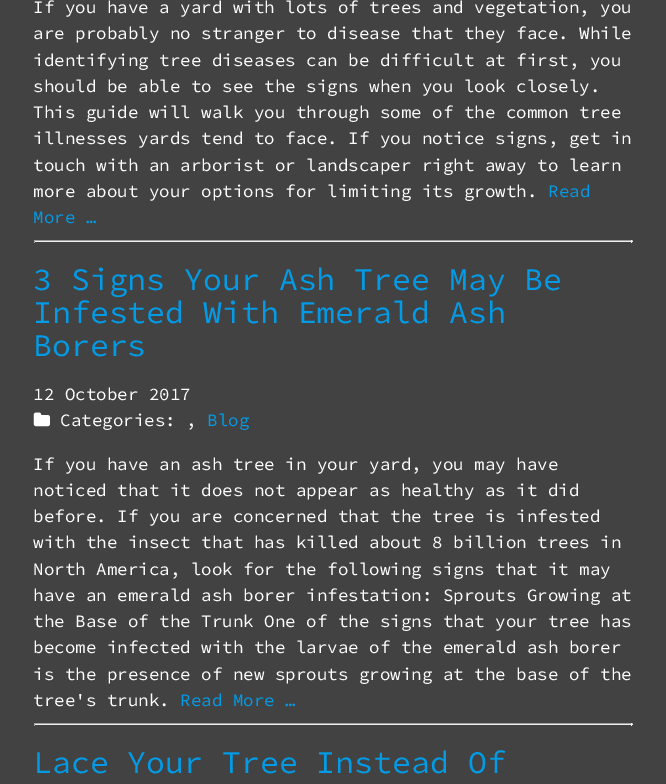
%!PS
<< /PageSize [666 784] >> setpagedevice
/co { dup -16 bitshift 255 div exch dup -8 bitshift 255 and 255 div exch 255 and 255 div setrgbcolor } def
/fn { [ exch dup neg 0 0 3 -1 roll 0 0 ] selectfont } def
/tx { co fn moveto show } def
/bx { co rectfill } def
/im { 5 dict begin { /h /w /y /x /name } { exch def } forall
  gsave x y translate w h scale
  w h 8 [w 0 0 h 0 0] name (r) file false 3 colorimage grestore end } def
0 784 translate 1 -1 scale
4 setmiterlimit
0 0 666 784 16#424242 bx
34 240 599 1 16#9F9F9F bx
631 240 1 3 16#EEEEEE bx
34 241 599 1 16#EEEEEE bx
34 240 1 3 16#9F9F9F bx
(media/1.raw) 33 412 17 15 im
34 723 599 1 16#9F9F9F bx
631 723 1 3 16#EEEEEE bx
34 724 599 1 16#EEEEEE bx
34 723 1 3 16#9F9F9F bx
(If you have a yard with lots of trees and vegetation, you) 33 13 /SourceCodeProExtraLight-ExtraLight 17.5 16#FFFFFF tx
(are probably no stranger to disease that they face. While) 33 39 /SourceCodeProExtraLight-ExtraLight 17.5 16#FFFFFF tx
(identifying tree diseases can be difficult at first, you) 33 66 /SourceCodeProExtraLight-ExtraLight 17.5 16#FFFFFF tx
(should be able to see the signs when you look closely.) 33 92 /SourceCodeProExtraLight-ExtraLight 17.5 16#FFFFFF tx
(This guide will walk you through some of the common tree) 33 118 /SourceCodeProExtraLight-ExtraLight 17.5 16#FFFFFF tx
(illnesses yards tend to face. If you notice signs, get in) 33 144 /SourceCodeProExtraLight-ExtraLight 17.5 16#FFFFFF tx
(touch with an arborist or landscaper right away to learn) 33 171 /SourceCodeProExtraLight-ExtraLight 17.5 16#FFFFFF tx
(more about your options for limiting its growth.) 33 197 /SourceCodeProExtraLight-ExtraLight 17.5 16#FFFFFF tx
(Read) 548 197 /SourceCodeProExtraLight-ExtraLight 17.5 16#039BE5 tx
(More …) 33 223 /SourceCodeProExtraLight-ExtraLight 17.5 16#039BE5 tx
(3 Signs Your Ash Tree May Be) 33 290 /SourceCodeProExtraLight-ExtraLight 31.5 16#039BE5 tx
(Infested With Emerald Ash) 33 323 /SourceCodeProExtraLight-ExtraLight 31.5 16#039BE5 tx
(Borers) 33 356 /SourceCodeProExtraLight-ExtraLight 31.5 16#039BE5 tx
(12 October 2017) 33 400 /SourceCodeProExtraLight-ExtraLight 17.5 16#FFFFFF tx
(Categories: ,) 60 426 /SourceCodeProExtraLight-ExtraLight 17.5 16#FFFFFF tx
(Blog) 207 426 /SourceCodeProExtraLight-ExtraLight 17.5 16#039BE5 tx
(If you have an ash tree in your yard, you may have) 33 470 /SourceCodeProExtraLight-ExtraLight 17.5 16#FFFFFF tx
(noticed that it does not appear as healthy as it did) 33 496 /SourceCodeProExtraLight-ExtraLight 17.5 16#FFFFFF tx
(before. If you are concerned that the tree is infested) 33 522 /SourceCodeProExtraLight-ExtraLight 17.5 16#FFFFFF tx
(with the insect that has killed about 8 billion trees in) 33 548 /SourceCodeProExtraLight-ExtraLight 17.5 16#FFFFFF tx
(North America, look for the following signs that it may) 33 575 /SourceCodeProExtraLight-ExtraLight 17.5 16#FFFFFF tx
(have an emerald ash borer infestation: Sprouts Growing at) 33 601 /SourceCodeProExtraLight-ExtraLight 17.5 16#FFFFFF tx
(the Base of the Trunk One of the signs that your tree has) 33 627 /SourceCodeProExtraLight-ExtraLight 17.5 16#FFFFFF tx
(become infected with the larvae of the emerald ash borer) 33 653 /SourceCodeProExtraLight-ExtraLight 17.5 16#FFFFFF tx
(is the presence of new sprouts growing at the base of the) 33 680 /SourceCodeProExtraLight-ExtraLight 17.5 16#FFFFFF tx
(tree's trunk.) 33 706 /SourceCodeProExtraLight-ExtraLight 17.5 16#FFFFFF tx
(Read More …) 180 706 /SourceCodeProExtraLight-ExtraLight 17.5 16#039BE5 tx
(Lace Your Tree Instead Of) 33 773 /SourceCodeProExtraLight-ExtraLight 31.5 16#039BE5 tx
showpage
